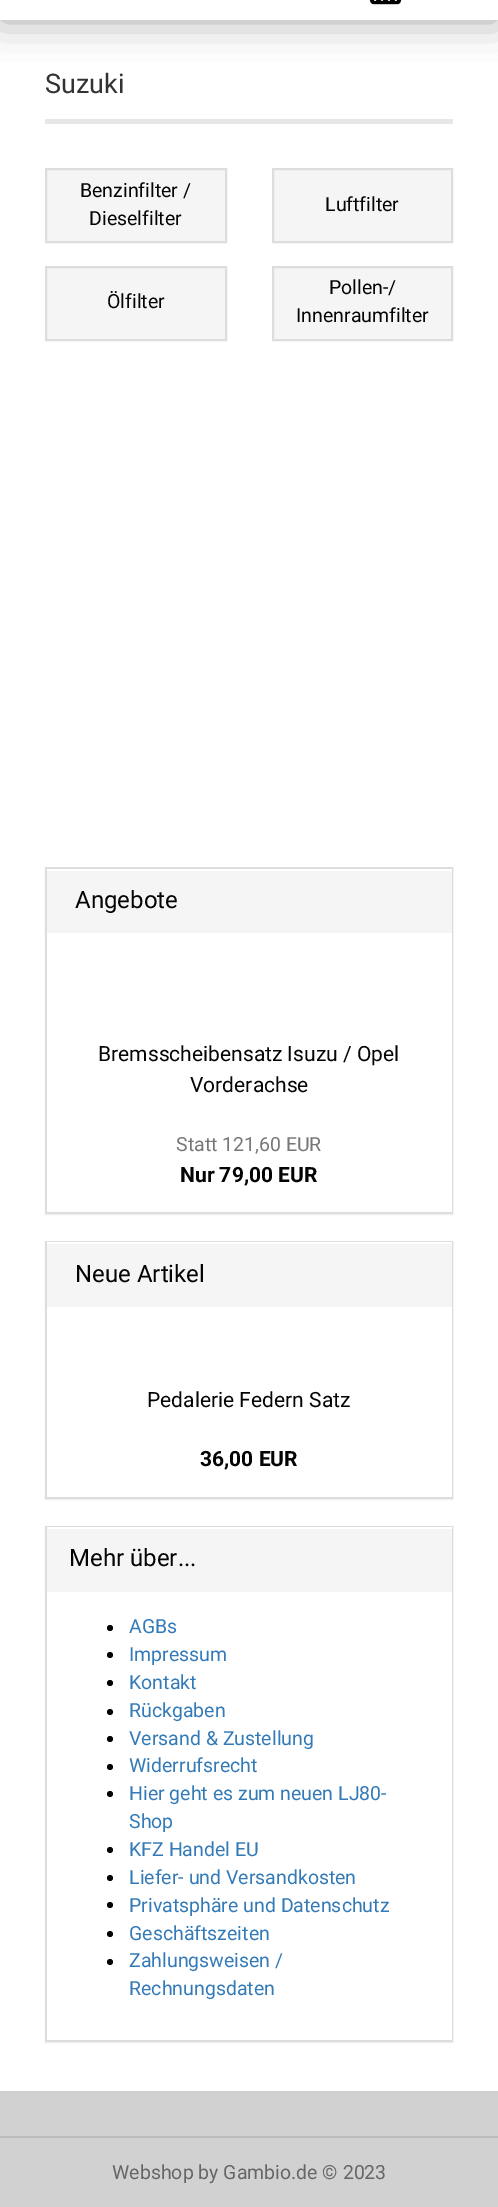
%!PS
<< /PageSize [498 2207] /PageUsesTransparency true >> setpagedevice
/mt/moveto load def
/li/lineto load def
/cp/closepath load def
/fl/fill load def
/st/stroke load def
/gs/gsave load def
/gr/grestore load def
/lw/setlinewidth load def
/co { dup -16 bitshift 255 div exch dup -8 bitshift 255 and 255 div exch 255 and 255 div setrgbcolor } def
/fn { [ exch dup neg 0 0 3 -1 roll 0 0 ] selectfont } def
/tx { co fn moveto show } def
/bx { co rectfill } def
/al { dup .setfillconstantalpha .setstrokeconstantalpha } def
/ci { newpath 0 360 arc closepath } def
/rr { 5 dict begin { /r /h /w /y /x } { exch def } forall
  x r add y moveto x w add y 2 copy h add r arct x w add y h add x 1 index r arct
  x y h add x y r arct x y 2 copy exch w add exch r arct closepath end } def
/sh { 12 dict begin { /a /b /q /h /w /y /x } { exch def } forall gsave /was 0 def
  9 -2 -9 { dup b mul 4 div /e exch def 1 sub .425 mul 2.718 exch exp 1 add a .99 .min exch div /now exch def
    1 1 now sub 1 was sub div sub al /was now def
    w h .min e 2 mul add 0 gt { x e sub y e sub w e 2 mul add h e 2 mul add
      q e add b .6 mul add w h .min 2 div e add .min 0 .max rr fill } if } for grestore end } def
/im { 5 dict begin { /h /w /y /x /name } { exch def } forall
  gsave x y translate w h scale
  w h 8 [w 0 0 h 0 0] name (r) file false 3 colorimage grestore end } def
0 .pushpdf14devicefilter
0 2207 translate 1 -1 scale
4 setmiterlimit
0 0 498 2207 16#FFFFFF bx
16#000000 co
0 -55 498 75 0 19 .35 sh
0 0 498 20 16#FFFFFF bx
(media/1.raw) 369 0 33 5 im
45 119 408 5 16#E7E7E7 bx
16#F5F5F5 co
46 169 mt 226 169 li 226 242 li 46 242 li cp gs fl gr
16#DDDDDD co
2 lw
st
16#F5F5F5 co
273 169 mt 452 169 li 452 242 li 273 242 li cp gs fl gr
16#DDDDDD co
st
16#F5F5F5 co
46 267 mt 226 267 li 226 340 li 46 340 li cp gs fl gr
16#DDDDDD co
st
16#F5F5F5 co
273 267 mt 452 267 li 452 340 li 273 340 li cp gs fl gr
16#DDDDDD co
st
16#000000 co
45 869 408 346 0 1 .05 sh
16#DDDDDD co
46 868 406 345 rectstroke
47 871 405 62 16#F5F5F5 bx
47 869 405 2 16#FFFFFF bx
47 933 405 279 16#FFFFFF bx
16#000000 co
45 1242 408 258 0 1 .05 sh
16#DDDDDD co
46 1242 406 256 rectstroke
47 1244 405 63 16#F5F5F5 bx
47 1242 405 2 16#FFFFFF bx
47 1307 405 190 16#FFFFFF bx
16#000000 co
45 1527 408 516 0 1 .05 sh
16#DDDDDD co
46 1527 406 514 rectstroke
47 1529 405 63 16#F5F5F5 bx
47 1527 405 2 16#FFFFFF bx
47 1592 405 448 16#FFFFFF bx
16#040404 co
110 1628 3 ci fl
110 1655 3 ci fl
110 1683 3 ci fl
110 1712 3 ci fl
110 1739 3 ci fl
110 1767 3 ci fl
110 1794 3 ci fl
110 1850 3 ci fl
110 1878 3 ci fl
110 1905 3 ci fl
110 1934 3 ci fl
110 1962 3 ci fl
0 2091 498 116 16#D1D1D1 bx
0 2136 498 2 16#BBBBBB bx
(Suzuki) 45 93 /Roboto-Regular 27 16#333333 tx
(Benzinfilter /) 80 197 /Roboto-Regular 19.5 16#040404 tx
(Dieselfilter) 89 225 /Roboto-Regular 19.5 16#040404 tx
(Luftfilter) 325 211 /Roboto-Regular 19.5 16#040404 tx
(Ölfilter) 107 308 /Roboto-Regular 19.5 16#040404 tx
(Pollen-/) 329 294 /Roboto-Regular 19.5 16#040404 tx
(Innenraumfilter) 296 322 /Roboto-Regular 19.5 16#040404 tx
(Angebote) 75 908 /Roboto-Regular 24 16#040404 tx
(Bremsscheibensatz Isuzu / Opel) 98 1061 /Roboto-Regular 21 16#040404 tx
(Vorderachse) 190 1092 /Roboto-Regular 21 16#040404 tx
(Statt 121,60 EUR) 176 1151 /Roboto-Regular 19.5 16#777777 tx
(Nur 79,00 EUR) 180 1182 /Roboto-Bold 21 16#040404 tx
(Neue Artikel) 75 1282 /Roboto-Regular 24 16#040404 tx
(Pedalerie Federn Satz) 147 1407 /Roboto-Regular 21 16#040404 tx
(36,00 EUR) 200 1466 /Roboto-Bold 21 16#040404 tx
(Mehr über...) 69 1566 /Roboto-Regular 24 16#040404 tx
(AGBs) 129 1633 /Roboto-Regular 19.5 16#337AB7 tx
(Impressum) 129 1661 /Roboto-Regular 19.5 16#337AB7 tx
(Kontakt) 129 1689 /Roboto-Regular 19.5 16#337AB7 tx
(Rückgaben) 129 1717 /Roboto-Regular 19.5 16#337AB7 tx
(Versand & Zustellung) 129 1745 /Roboto-Regular 19.5 16#337AB7 tx
(Widerrufsrecht) 129 1772 /Roboto-Regular 19.5 16#337AB7 tx
(Hier geht es zum neuen LJ80-) 129 1800 /Roboto-Regular 19.5 16#337AB7 tx
(Shop) 129 1828 /Roboto-Regular 19.5 16#337AB7 tx
(KFZ Handel EU) 129 1856 /Roboto-Regular 19.5 16#337AB7 tx
(Liefer- und Versandkosten) 129 1884 /Roboto-Regular 19.5 16#337AB7 tx
(Privatsphäre und Datenschutz) 129 1912 /Roboto-Regular 19.5 16#337AB7 tx
(Geschäftszeiten) 129 1940 /Roboto-Regular 19.5 16#337AB7 tx
(Zahlungsweisen /) 129 1967 /Roboto-Regular 19.5 16#337AB7 tx
(Rechnungsdaten) 129 1995 /Roboto-Regular 19.5 16#337AB7 tx
(Webshop by Gambio.de © 2023) 112 2179 /Roboto-Regular 19.5 16#666666 tx
.poppdf14devicefilter showpage
